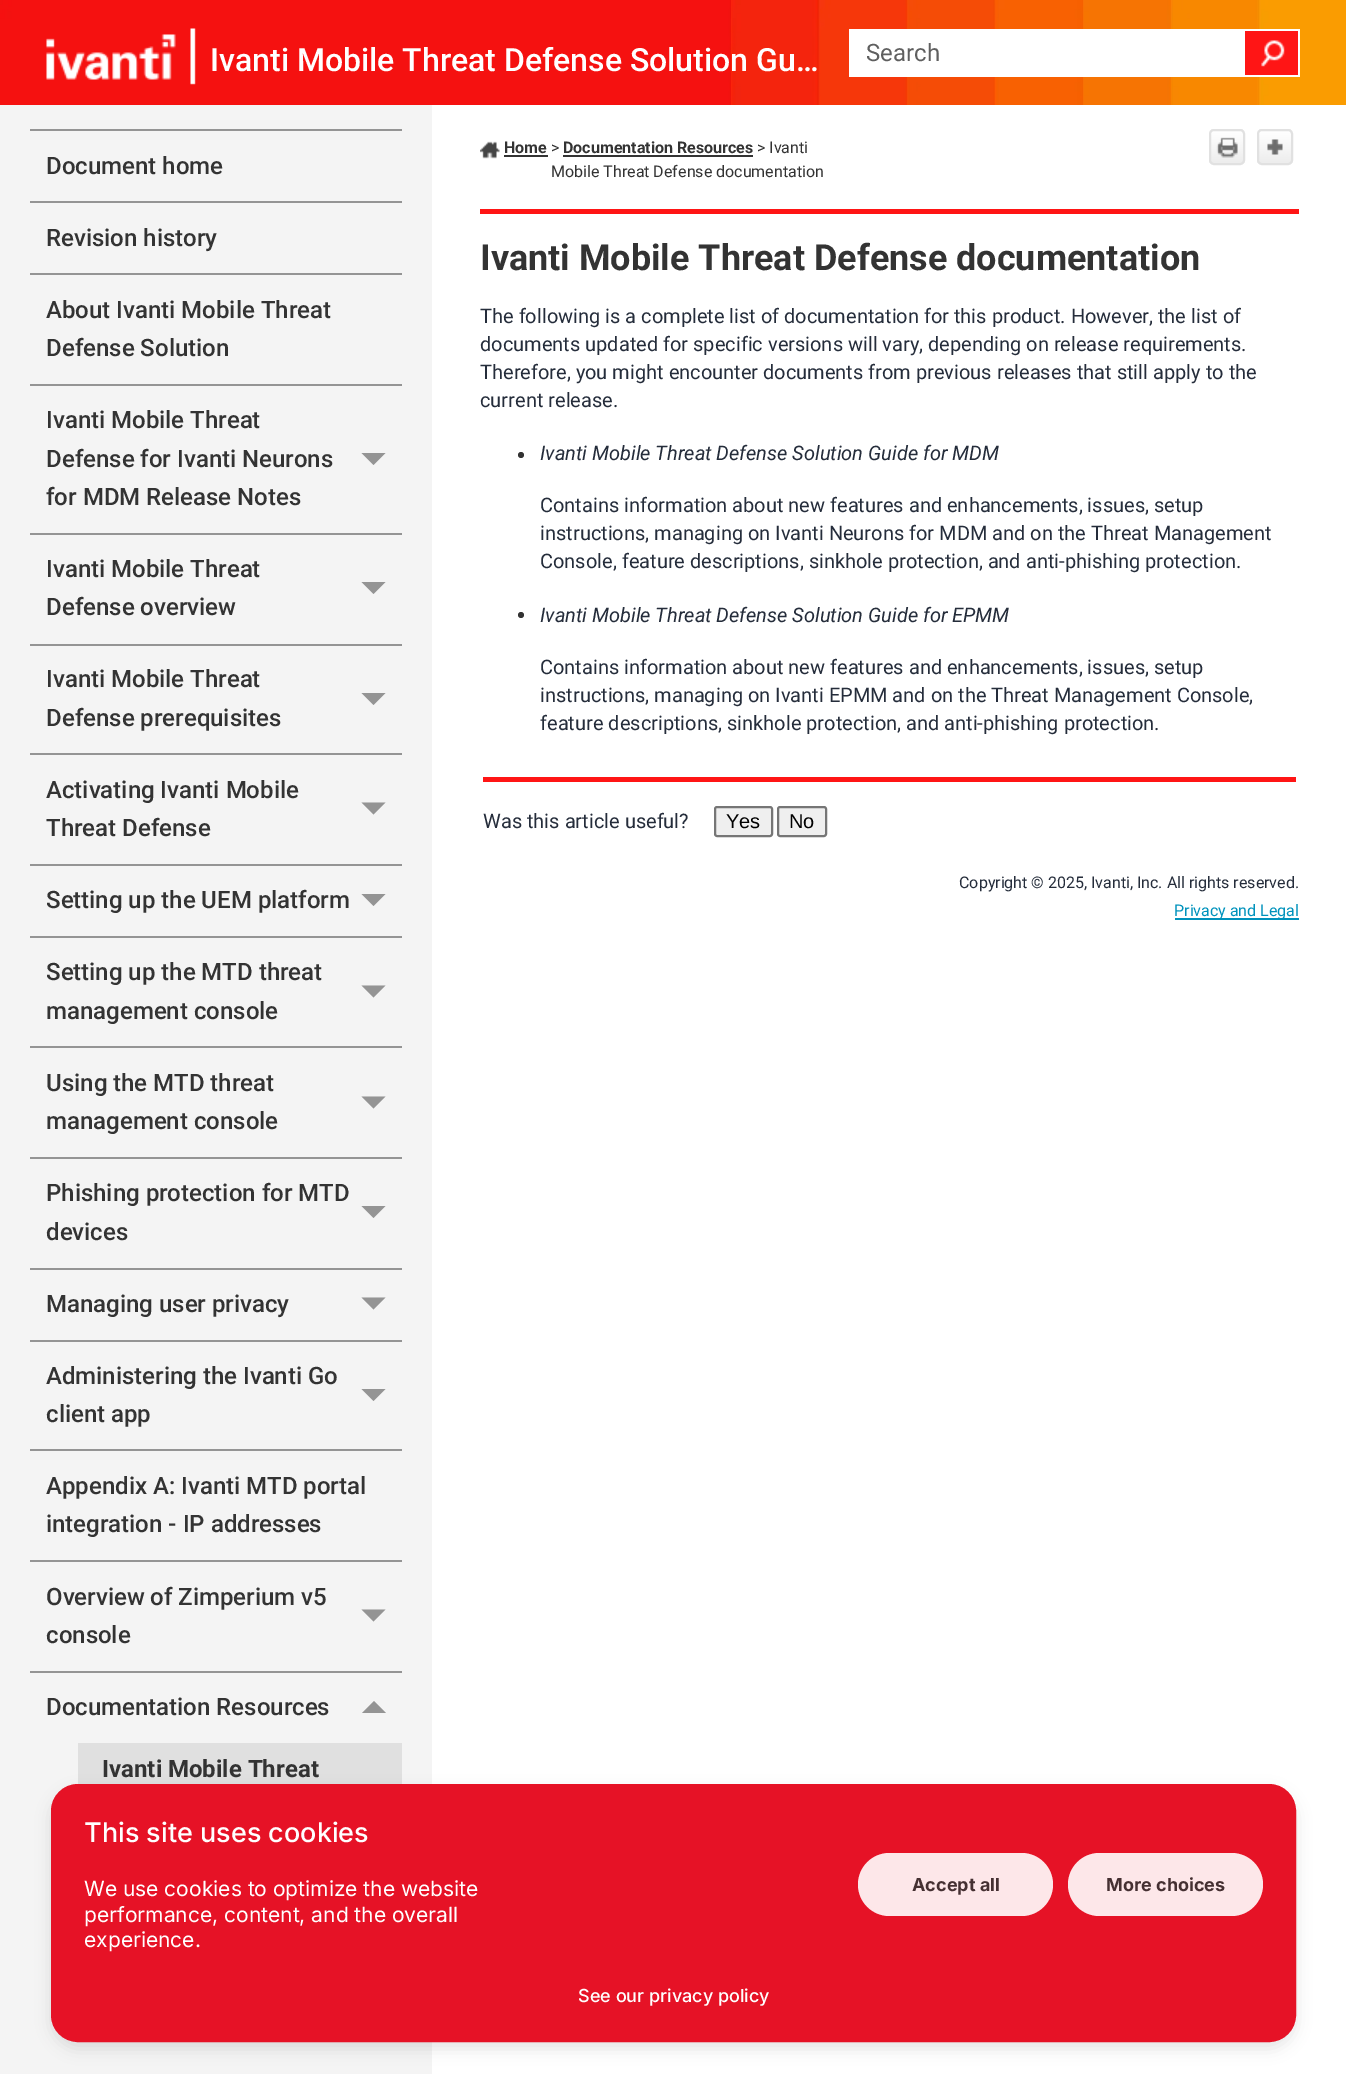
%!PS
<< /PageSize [1346 2074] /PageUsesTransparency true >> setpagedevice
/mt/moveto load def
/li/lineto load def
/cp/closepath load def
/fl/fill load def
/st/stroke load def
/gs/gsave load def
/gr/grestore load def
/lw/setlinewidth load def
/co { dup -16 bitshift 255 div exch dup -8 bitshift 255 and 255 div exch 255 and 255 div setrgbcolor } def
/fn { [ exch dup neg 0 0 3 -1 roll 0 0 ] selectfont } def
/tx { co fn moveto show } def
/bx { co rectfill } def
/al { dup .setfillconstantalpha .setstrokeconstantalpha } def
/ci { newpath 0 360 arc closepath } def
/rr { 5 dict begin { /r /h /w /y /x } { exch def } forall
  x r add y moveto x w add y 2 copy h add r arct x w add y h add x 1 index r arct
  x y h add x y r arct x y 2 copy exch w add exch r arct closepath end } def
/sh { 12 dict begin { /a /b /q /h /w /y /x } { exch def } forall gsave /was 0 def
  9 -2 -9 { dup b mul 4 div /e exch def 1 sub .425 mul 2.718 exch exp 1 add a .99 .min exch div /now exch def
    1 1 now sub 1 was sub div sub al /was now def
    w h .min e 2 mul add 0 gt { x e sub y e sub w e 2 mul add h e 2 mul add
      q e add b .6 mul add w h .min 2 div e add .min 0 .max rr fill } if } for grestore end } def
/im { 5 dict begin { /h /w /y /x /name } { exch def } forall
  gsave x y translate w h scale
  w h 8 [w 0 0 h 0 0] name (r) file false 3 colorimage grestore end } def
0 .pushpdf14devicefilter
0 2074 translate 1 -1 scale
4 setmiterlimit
0 0 1346 2074 16#F4F4F4 bx
(media/1.raw) 0 0 1346 105 im
(media/2.raw) 46 28 150 57 im
849 29 396 48 16#FFFFFF bx
1245 31 53 44 16#FF1515 bx
(media/3.raw) 1261 40 24 27 im
1245 29 54 2 16#FFFFFF bx
1298 29 2 48 16#FFFFFF bx
1245 75 54 2 16#FFFFFF bx
30 129 372 2 16#949494 bx
30 201 372 2 16#949494 bx
30 273 372 2 16#949494 bx
30 384 372 2 16#949494 bx
361.5 453 mt 385.5 453 li 373.5 465 li cp fl
30 533 372 2 16#949494 bx
361.5 582 mt 385.5 582 li 373.5 594 li cp fl
30 644 372 2 16#949494 bx
361.5 693 mt 385.5 693 li 373.5 705 li cp fl
30 753 372 2 16#949494 bx
361.5 802.5 mt 385.5 802.5 li 373.5 814.5 li cp fl
30 864 372 2 16#949494 bx
361.5 894 mt 385.5 894 li 373.5 906 li cp fl
30 936 372 2 16#949494 bx
361.5 985.5 mt 385.5 985.5 li 373.5 997.5 li cp fl
30 1046 372 2 16#949494 bx
361.5 1096.5 mt 385.5 1096.5 li 373.5 1108.5 li cp fl
30 1157 372 2 16#949494 bx
361.5 1206 mt 385.5 1206 li 373.5 1218 li cp fl
30 1268 372 2 16#949494 bx
361.5 1297.5 mt 385.5 1297.5 li 373.5 1309.5 li cp fl
30 1340 372 2 16#949494 bx
361.5 1389 mt 385.5 1389 li 373.5 1401 li cp fl
30 1449 372 2 16#949494 bx
30 1560 372 2 16#949494 bx
361.5 1609.5 mt 385.5 1609.5 li 373.5 1621.5 li cp fl
30 1671 372 2 16#949494 bx
362 1713 mt 386 1713 li 374 1701 li cp fl
78 1743 324 41 16#E0E0E0 bx
432 105 914 1969 16#FFFFFF bx
480 209 819 5 16#FF1515 bx
(media/4.raw) 480 141 20 18 im
504 155 44 2 16#333333 bx
563 155 190 2 16#333333 bx
(media/5.raw) 1209 129 36 35 im
16#E1E1E1 co
2 lw
1210 130 34 34 4 rr st
(media/6.raw) 1257 129 36 35 im
1258 130 34 34 4 rr st
16#333333 co
521 455 3 ci fl
521 615 3 ci fl
483 777 813 5 16#FF1515 bx
16#EFEFEF co
715 807 57 29 2 rr gs fl gr
16#767676 co
st
16#EFEFEF co
778 807 48 29 2 rr gs fl gr
16#767676 co
st
1175 918 124 2 16#0092BC bx
16#000000 co
51 1791 1245 258 27 7.5 .1 sh
16#E61226 co
52 1785 1243 256 26 rr gs fl gr
st
16#FDE7E9 co
858 1853 195 63 31.5 rr fl
1068 1853 195 63 31.5 rr fl
(Search) 866 61 /Roboto-Regular 24 16#5F5F5F tx
(Document home) 46 174 /Roboto-Medium 24 16#333333 tx
(Revision history) 46 246 /Roboto-Medium 24 16#333333 tx
(About Ivanti Mobile Threat) 46 318 /Roboto-Medium 24 16#333333 tx
(Defense Solution) 46 356 /Roboto-Medium 24 16#333333 tx
(Ivanti Mobile Threat) 46 428 /Roboto-Medium 24 16#333333 tx
(Defense for Ivanti Neurons) 46 467 /Roboto-Medium 24 16#333333 tx
(for MDM Release Notes) 46 505 /Roboto-Medium 24 16#333333 tx
(Ivanti Mobile Threat) 46 577 /Roboto-Medium 24 16#333333 tx
(Defense overview) 46 615 /Roboto-Medium 24 16#333333 tx
(Ivanti Mobile Threat) 46 687 /Roboto-Medium 24 16#333333 tx
(Defense prerequisites) 46 726 /Roboto-Medium 24 16#333333 tx
(Activating Ivanti Mobile) 46 798 /Roboto-Medium 24 16#333333 tx
(Threat Defense) 46 836 /Roboto-Medium 24 16#333333 tx
(Setting up the UEM platform) 46 908 /Roboto-Medium 24 16#333333 tx
(Setting up the MTD threat) 46 980 /Roboto-Medium 24 16#333333 tx
(management console) 46 1019 /Roboto-Medium 24 16#333333 tx
(Using the MTD threat) 46 1091 /Roboto-Medium 24 16#333333 tx
(management console) 46 1129 /Roboto-Medium 24 16#333333 tx
(Phishing protection for MTD) 46 1201 /Roboto-Medium 24 16#333333 tx
(devices) 46 1240 /Roboto-Medium 24 16#333333 tx
(Managing user privacy) 46 1312 /Roboto-Medium 24 16#333333 tx
(Administering the Ivanti Go) 46 1384 /Roboto-Medium 24 16#333333 tx
(client app) 46 1422 /Roboto-Medium 24 16#333333 tx
(Appendix A: Ivanti MTD portal) 46 1494 /Roboto-Medium 24 16#333333 tx
(integration - IP addresses) 46 1532 /Roboto-Medium 24 16#333333 tx
(Overview of Zimperium v5) 46 1605 /Roboto-Medium 24 16#333333 tx
(console) 46 1643 /Roboto-Medium 24 16#333333 tx
(Documentation Resources) 46 1715 /Roboto-Medium 24 16#333333 tx
(Ivanti Mobile Threat) 102 1777 /Roboto-Bold 24 16#333333 tx
gs
210 47 612 34 rectclip
(Ivanti Mobile Threat Defense Solution Gu…) 210 71 /Roboto-Medium 32 16#FFFFFF tx
gr
(Home) 504 153 /Roboto-Bold 16 16#333333 tx
(>) 551 153 /Roboto-Regular 16 16#333333 tx
(Documentation Resources) 563 153 /Roboto-Bold 16 16#333333 tx
(> Ivanti) 757 153 /Roboto-Regular 16 16#333333 tx
(Mobile Threat Defense documentation) 551 177 /Roboto-Regular 16 16#333333 tx
(Ivanti Mobile Threat Defense documentation) 480 270 /Roboto-Bold 36 16#333333 tx
(The following is a complete list of documentation for this product. However, the list of) 480 323 /Roboto-Regular 20 16#252D3B tx
(documents updated for specific versions will vary, depending on release requirements.) 480 351 /Roboto-Regular 20 16#252D3B tx
(Therefore, you might encounter documents from previous releases that still apply to the) 480 379 /Roboto-Regular 20 16#252D3B tx
(current release.) 480 407 /Roboto-Regular 20 16#252D3B tx
(Ivanti Mobile Threat Defense Solution Guide for MDM) 540 460 /Roboto-Italic 20 16#252D3B tx
(Contains information about new features and enhancements, issues, setup) 540 512 /Roboto-Regular 20 16#252D3B tx
(instructions, managing on Ivanti Neurons for MDM and on the Threat Management) 540 540 /Roboto-Regular 20 16#252D3B tx
(Console, feature descriptions, sinkhole protection, and anti-phishing protection.) 540 568 /Roboto-Regular 20 16#252D3B tx
(Ivanti Mobile Threat Defense Solution Guide for EPMM) 540 622 /Roboto-Italic 20 16#252D3B tx
(Contains information about new features and enhancements, issues, setup) 540 674 /Roboto-Regular 20 16#252D3B tx
(instructions, managing on Ivanti EPMM and on the Threat Management Console,) 540 702 /Roboto-Regular 20 16#252D3B tx
(feature descriptions, sinkhole protection, and anti-phishing protection.) 540 730 /Roboto-Regular 20 16#252D3B tx
(Was this article useful?) 483 828 /Roboto-Regular 20 16#252D3B tx
(Yes) 726 828 /LiberationSans-Regular 20 16#000000 tx
(No) 789 828 /LiberationSans-Regular 20 16#000000 tx
(Copyright © 2025, Ivanti, Inc. All rights reserved.) 959 888 /Roboto-Regular 16 16#252D3B tx
(Privacy and Legal) 1174 916 /Roboto-Regular 16 16#0092BC tx
(This site uses cookies) 84 1842 /Inter-Medium 27 16#FFFFFF tx
(We use cookies to optimize the website) 84 1896 /Inter-Regular 21 16#FFFFFF tx
(performance, content, and the overall) 84 1922 /Inter-Regular 21 16#FFFFFF tx
(experience.) 84 1947 /Inter-Regular 21 16#FFFFFF tx
(Accept all) 912 1891 /Inter-Bold 18 16#453032 tx
(More choices) 1106 1891 /Inter-Bold 18 16#453032 tx
(See our privacy policy) 578 2002 /Inter-Medium 18 16#FFFFFF tx
.poppdf14devicefilter showpage
